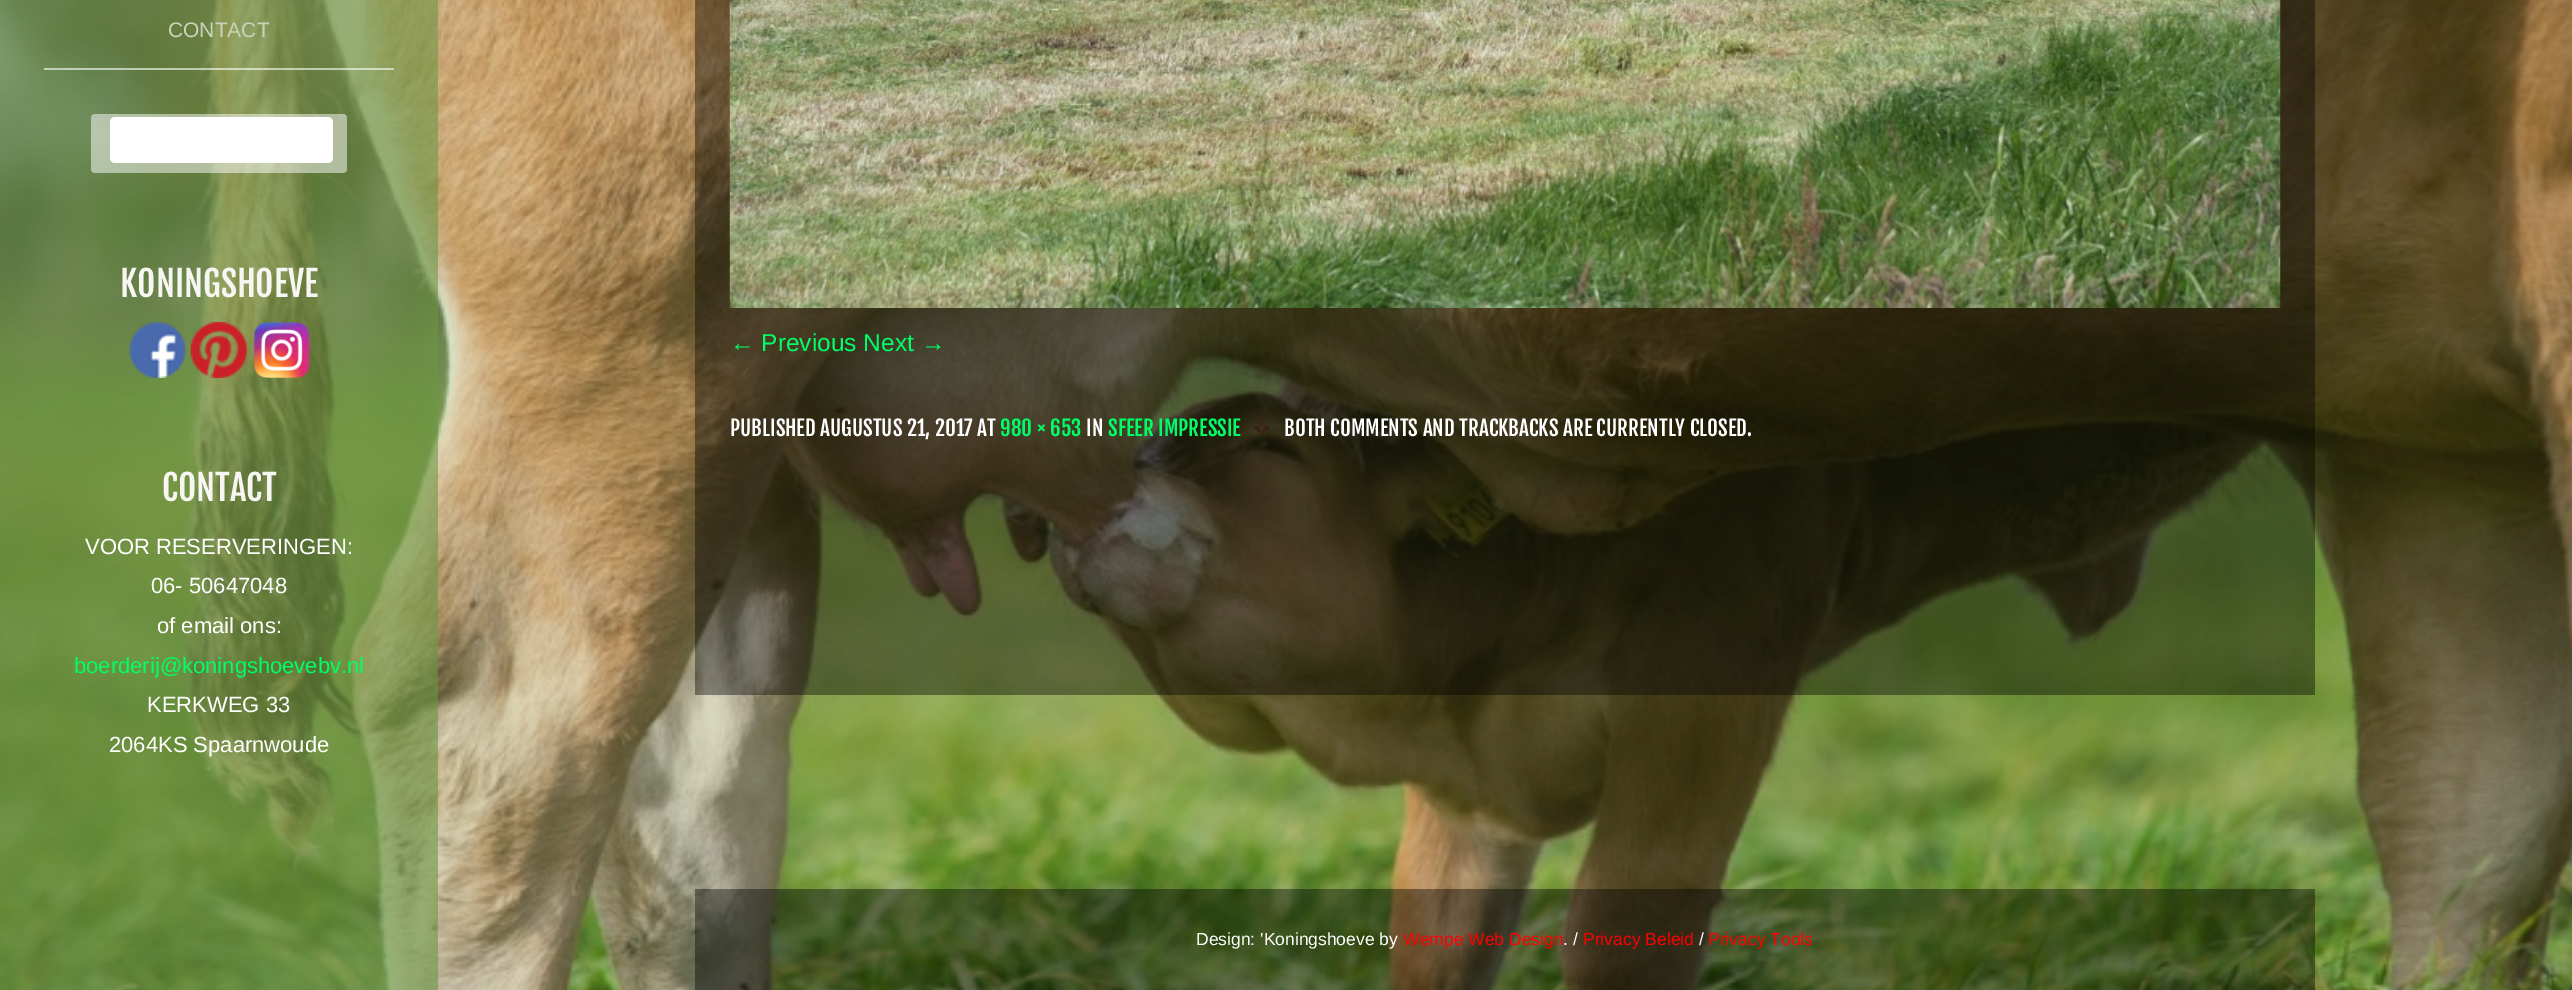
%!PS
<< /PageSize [2572 990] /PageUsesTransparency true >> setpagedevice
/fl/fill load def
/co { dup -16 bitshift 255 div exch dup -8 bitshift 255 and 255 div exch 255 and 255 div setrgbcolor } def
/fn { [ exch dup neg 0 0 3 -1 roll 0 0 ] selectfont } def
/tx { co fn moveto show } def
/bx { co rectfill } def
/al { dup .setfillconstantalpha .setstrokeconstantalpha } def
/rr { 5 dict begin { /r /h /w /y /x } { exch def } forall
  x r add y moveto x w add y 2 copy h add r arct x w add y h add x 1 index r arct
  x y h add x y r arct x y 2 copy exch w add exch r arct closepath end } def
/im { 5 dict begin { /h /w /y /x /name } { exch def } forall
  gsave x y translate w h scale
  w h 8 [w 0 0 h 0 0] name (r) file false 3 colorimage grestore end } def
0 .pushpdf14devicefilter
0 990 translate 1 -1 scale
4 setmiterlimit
0 0 2572 990 16#FFFFFF bx
(media/1.raw) 0 0 2572 990 im
0.6 al
0 0 438 990 16#6C9644 bx
44 68 350 2 16#FFFFFF bx
0.5 al
91 114 256 59 4 rr fl
1 al
110 117 223 46 5 rr fl
(media/2.raw) 129 322 57 56 im
(media/3.raw) 190 322 57 56 im
(media/4.raw) 253 322 57 56 im
0.4 al
695 0 1620 695 16#000000 bx
1 al
(media/5.raw) 729 0 1552 308 im
(media/6.raw) 1253 418 17 18 im
0.4 al
695 889 1620 101 16#000000 bx
1 al
(CONTACT) 168 37 /LiberationSans-Regular 21 16#CAD2B9 tx
(KONINGSHOEVE) 120 297 /FjallaOne-Regular 35 16#F7F6F2 tx
(CONTACT) 162 501 /FjallaOne-Regular 35 16#F7F6F2 tx
(VOOR RESERVERINGEN:) 85 554 /LiberationSans-Regular 22 16#FFFFFF tx
(06- 50647048) 151 593 /LiberationSans-Regular 22 16#FFFFFF tx
(of email ons:) 157 633 /LiberationSans-Regular 22 16#FFFFFF tx
(boerderij@koningshoevebv.nl) 74 673 /LiberationSans-Regular 22 16#00FF66 tx
(KERKWEG 33) 147 712 /LiberationSans-Regular 22 16#FFFFFF tx
(2064KS Spaarnwoude) 109 752 /LiberationSans-Regular 22 16#FFFFFF tx
(← Previous Next →) 730 351 /LiberationSans-Regular 24.5 16#00FF66 tx
(PUBLISHED AUGUSTUS 21, 2017 AT) 730 436 /FjallaOne-Regular 21 16#FFFFFF tx
(980 × 653) 1000 436 /FjallaOne-Regular 21 16#00FF66 tx
(IN) 1086 436 /FjallaOne-Regular 21 16#FFFFFF tx
(SFEER IMPRESSIE) 1108 436 /FjallaOne-Regular 21 16#00FF66 tx
(BOTH COMMENTS AND TRACKBACKS ARE CURRENTLY CLOSED.) 1284 436 /FjallaOne-Regular 21 16#FFFFFF tx
(Design: 'Koningshoeve by) 1196 945 /LiberationSans-Regular 17.5 16#FFFFFF tx
(Wempe Web Design) 1403 945 /LiberationSans-Regular 17.5 16#FF0000 tx
(. /) 1563 945 /LiberationSans-Regular 17.5 16#FFFFFF tx
(Privacy Beleid) 1583 945 /LiberationSans-Regular 17.5 16#FF0000 tx
(/) 1699 945 /LiberationSans-Regular 17.5 16#FFFFFF tx
(Privacy Tools) 1708 945 /LiberationSans-Regular 17.5 16#FF0000 tx
.poppdf14devicefilter showpage
